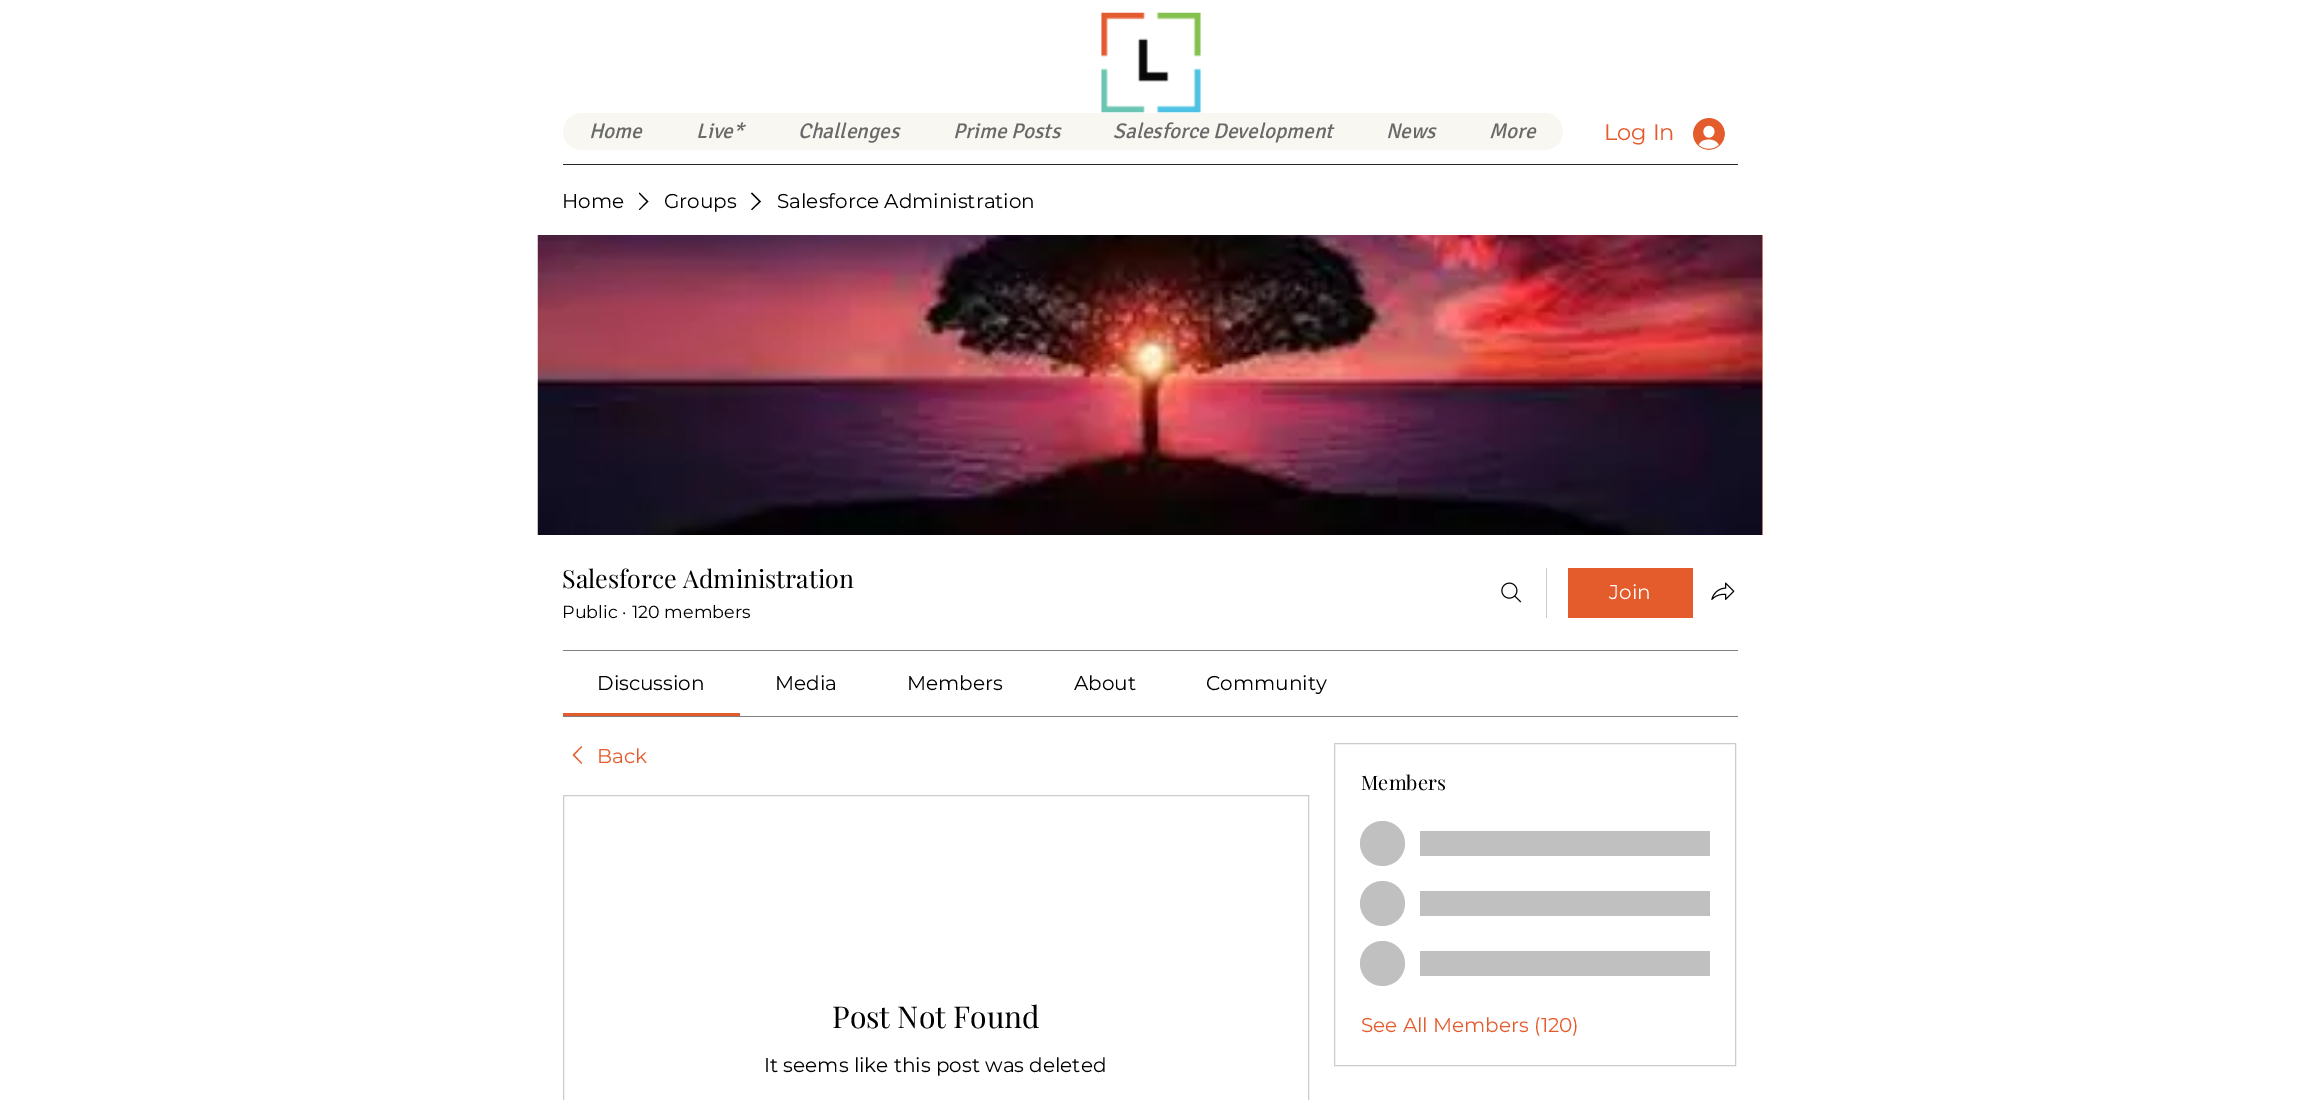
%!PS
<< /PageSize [2298 1100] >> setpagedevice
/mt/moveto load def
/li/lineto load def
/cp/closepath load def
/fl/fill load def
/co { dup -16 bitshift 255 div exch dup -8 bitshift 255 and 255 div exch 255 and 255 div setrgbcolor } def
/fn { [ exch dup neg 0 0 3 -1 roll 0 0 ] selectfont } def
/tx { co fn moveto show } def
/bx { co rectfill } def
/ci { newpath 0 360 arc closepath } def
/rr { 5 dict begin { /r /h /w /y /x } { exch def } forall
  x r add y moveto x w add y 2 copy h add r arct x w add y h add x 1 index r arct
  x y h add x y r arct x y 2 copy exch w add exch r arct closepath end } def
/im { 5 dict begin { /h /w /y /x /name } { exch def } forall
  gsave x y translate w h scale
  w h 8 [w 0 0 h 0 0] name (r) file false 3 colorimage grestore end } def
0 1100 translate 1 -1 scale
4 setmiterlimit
0 0 2298 1100 16#FFFFFF bx
(media/1.raw) 1101 12 101 101 im
16#F9F7F2 co
563 113 1000 37 18.5 rr fl
(media/2.raw) 1693 118 32 32 im
563 164 1175 1 16#262626 bx
16#000000 co
639.5 192.5 mt 648.5 201.5 li 639.5 210 li 639 209.5 li 646.5 201.5 li 639 193.5 li cp eofill
752 192.5 mt 761 201.5 li 752 210 li 751 209.5 li 759 201.5 li 751 193.5 li cp eofill
1762 235 1 300 16#EF9E81 bx
(media/3.raw) 537 235 1226 300 im
(media/4.raw) 1501 582 21 21 im
1546 568 1 50 16#CCCCCC bx
1568 568 125 50 16#E45C2C bx
(media/5.raw) 1711 582 24 18 im
563 650 1175 1 16#808080 bx
563 716 1175 1 16#808080 bx
563 713 177 3 16#E45C2C bx
581.5 746 mt 582 747 li 574.5 755 li 582 763 li 581.5 764 li 572.5 755 li cp eofill
16#CCCCCC co
563.5 795.5 745 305 rectstroke
1334.5 743.5 401 322 rectstroke
16#C0C0C0 co
1382.5 843.5 22.5 ci fl
1420 831 290 25 16#C0C0C0 bx
1382.5 903.5 22.5 ci fl
1420 891 290 25 16#C0C0C0 bx
1382.5 963.5 22.5 ci fl
1420 951 290 25 16#C0C0C0 bx
(Home) 589 138 /Signika-Italic 21.25 16#696969 tx
(Live*) 696 138 /Signika-Italic 21.25 16#696969 tx
(Challenges) 798 138 /Signika-Italic 21.25 16#696969 tx
(Prime Posts) 953 138 /Signika-Italic 21.25 16#696969 tx
(Salesforce Development) 1113 138 /Signika-Italic 21.25 16#696969 tx
(News) 1386 138 /Signika-Italic 21.25 16#696969 tx
(More) 1489 138 /Signika-Italic 21.25 16#696969 tx
(Log In) 1604 140 /Montserrat-Regular 22.5 16#E45C2C tx
(Home) 562 208 /Montserrat-Regular 20 16#000000 tx
(Groups) 664 208 /Montserrat-Regular 20 16#000000 tx
(Salesforce Administration) 777 208 /Montserrat-Regular 20 16#000000 tx
(Salesforce Administration) 562 588 /PlayfairDisplay-Regular 25 16#000000 tx
(Public) 562 618 /Montserrat-Regular 17.5 16#000000 tx
(·) 622 618 /Montserrat-Regular 17.5 16#000000 tx
(120 members) 632 618 /Montserrat-Regular 17.5 16#000000 tx
(Join) 1609 599 /Montserrat-Regular 20 16#FFFFFF tx
(Discussion) 597 690 /Montserrat-Regular 20 16#000000 tx
(Media) 775 690 /Montserrat-Regular 20 16#000000 tx
(Members) 907 690 /Montserrat-Regular 20 16#000000 tx
(About) 1074 690 /Montserrat-Regular 20 16#000000 tx
(Community) 1206 690 /Montserrat-Regular 20 16#000000 tx
(Back) 597 763 /Montserrat-Regular 20 16#E45C2C tx
(Post Not Found) 832 1028 /PlayfairDisplay-Regular 30 16#000000 tx
(It seems like this post was deleted) 764 1072 /Montserrat-Regular 20 16#000000 tx
(Members) 1361 790 /PlayfairDisplay-Regular 20 16#000000 tx
(See All Members \(120\)) 1361 1032 /Montserrat-Regular 20 16#E45C2C tx
showpage
